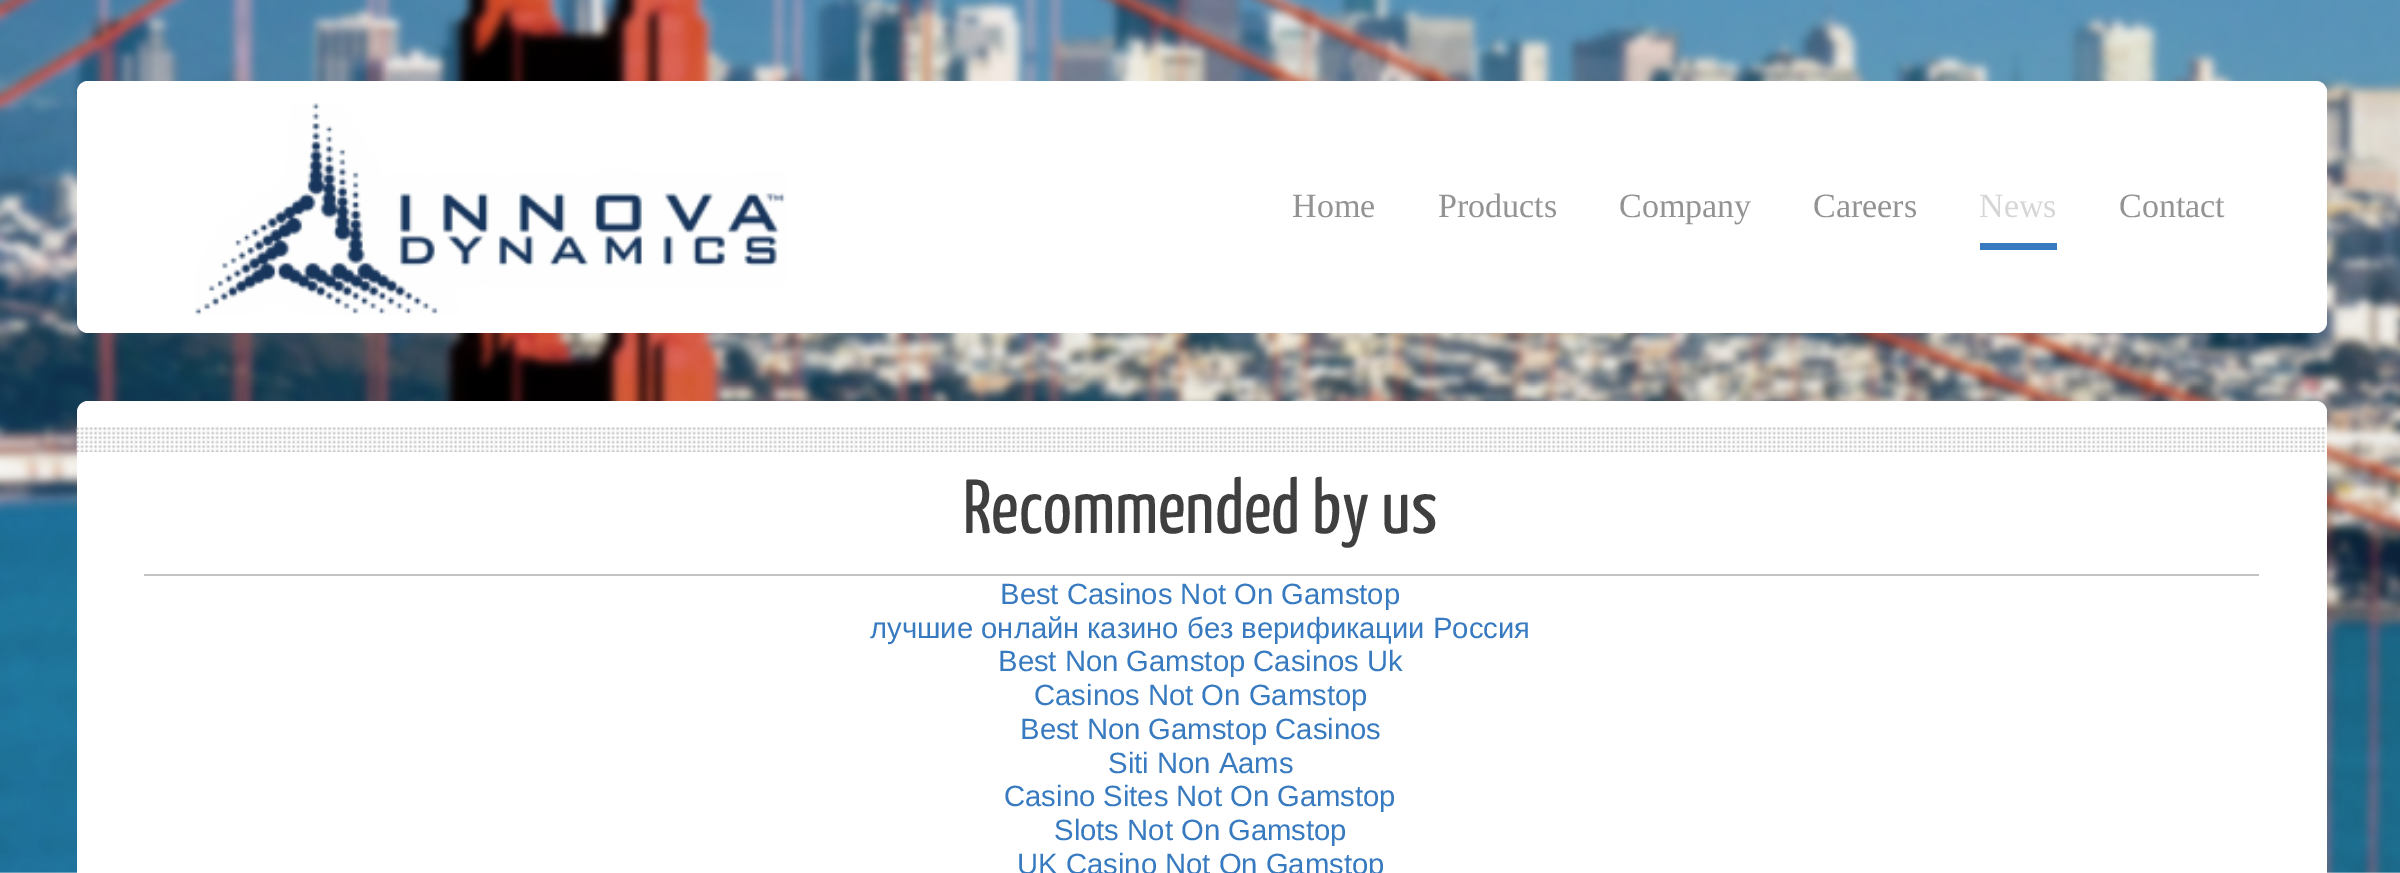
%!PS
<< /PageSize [2400 873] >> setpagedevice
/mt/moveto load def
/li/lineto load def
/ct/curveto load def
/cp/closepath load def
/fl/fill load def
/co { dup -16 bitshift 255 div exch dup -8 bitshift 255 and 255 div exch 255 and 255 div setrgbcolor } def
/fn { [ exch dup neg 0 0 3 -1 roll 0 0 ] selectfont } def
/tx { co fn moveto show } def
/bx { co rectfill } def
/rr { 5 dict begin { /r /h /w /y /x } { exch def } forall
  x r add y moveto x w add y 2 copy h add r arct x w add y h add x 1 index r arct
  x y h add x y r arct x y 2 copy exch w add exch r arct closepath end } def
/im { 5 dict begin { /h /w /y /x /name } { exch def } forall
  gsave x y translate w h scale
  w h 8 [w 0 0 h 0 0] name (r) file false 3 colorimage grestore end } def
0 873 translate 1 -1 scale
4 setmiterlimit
0 0 2400 873 16#FFFFFF bx
(media/1.raw) 0 0 2400 873 im
77 81 2250 252 11 rr fl
(media/2.raw) 195 103 591 213 im
1980 243 77 7 16#377ABF bx
16#FFFFFF co
88 401 mt 2316 401 li 2322 401 2327 406 2327 412 ct 2327 452 li 77 452 li 77 412 li 77 406 82 401 88 401 ct cp fl
(media/3.raw) 76 427 2251 25 im
77 452 2250 421 16#FFFFFF bx
144 574 2115 2 16#C3C3C3 bx
(Home) 1292 217 /LiberationSerif-Regular 34 16#939393 tx
(Products) 1438 217 /LiberationSerif-Regular 34 16#939393 tx
(Company) 1619 217 /LiberationSerif-Regular 34 16#939393 tx
(Careers) 1813 217 /LiberationSerif-Regular 34 16#939393 tx
(News) 1979 217 /LiberationSerif-Regular 34 16#D6D6D6 tx
(Contact) 2119 217 /LiberationSerif-Regular 34 16#939393 tx
(Recommended by us) 963 533 /YanoneKaffeesatz-Regular 76.5 16#3F3F3F tx
(Best Casinos Not On Gamstop) 1000 604 /LiberationSans-Regular 29.25 16#377ABF tx
(лучшие онлайн казино без верификации Россия) 870 638 /LiberationSans-Regular 29.25 16#377ABF tx
(Best Non Gamstop Casinos Uk) 998 671 /LiberationSans-Regular 29.25 16#377ABF tx
(Casinos Not On Gamstop) 1034 705 /LiberationSans-Regular 29.25 16#377ABF tx
(Best Non Gamstop Casinos) 1020 739 /LiberationSans-Regular 29.25 16#377ABF tx
(Siti Non Aams) 1108 773 /LiberationSans-Regular 29.25 16#377ABF tx
(Casino Sites Not On Gamstop) 1004 806 /LiberationSans-Regular 29.25 16#377ABF tx
(Slots Not On Gamstop) 1054 840 /LiberationSans-Regular 29.25 16#377ABF tx
(UK Casino Not On Gamstop) 1017 874 /LiberationSans-Regular 29.25 16#377ABF tx
showpage
